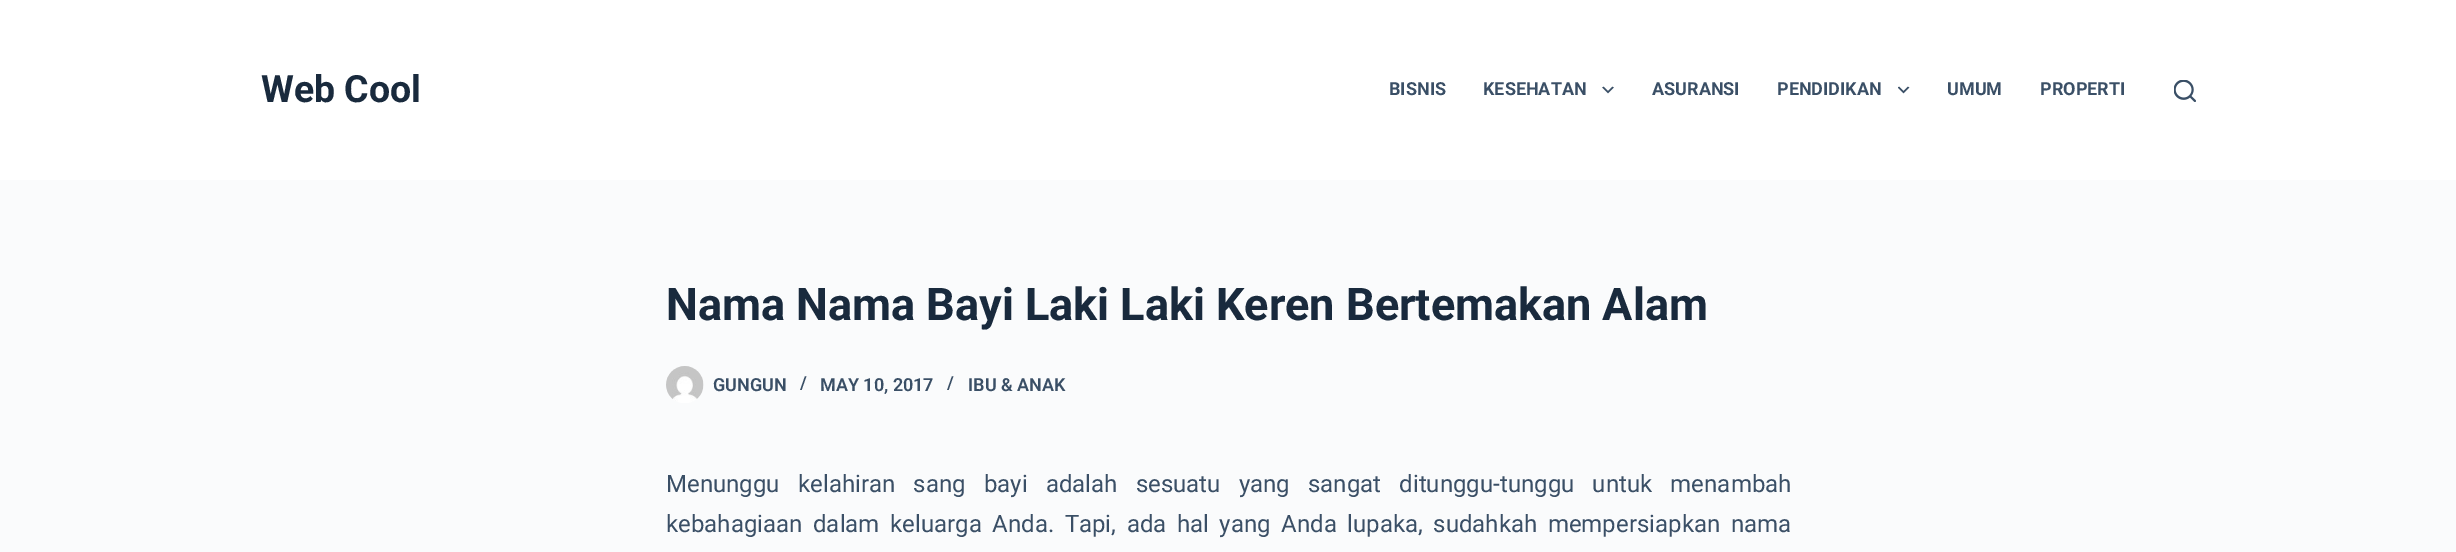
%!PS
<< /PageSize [2456 552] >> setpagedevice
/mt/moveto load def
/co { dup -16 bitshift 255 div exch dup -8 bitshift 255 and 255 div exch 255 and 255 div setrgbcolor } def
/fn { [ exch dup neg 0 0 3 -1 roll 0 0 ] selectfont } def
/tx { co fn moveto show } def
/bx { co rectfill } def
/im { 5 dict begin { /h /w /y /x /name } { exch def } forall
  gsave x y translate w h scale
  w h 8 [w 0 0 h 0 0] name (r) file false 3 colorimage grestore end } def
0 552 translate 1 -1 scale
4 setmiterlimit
0 0 2456 552 16#FAFBFC bx
0 0 2456 180 16#FFFFFF bx
(media/1.raw) 1602 86 12 8 im
(media/2.raw) 1898 86 12 8 im
(media/3.raw) 2174 80 22 22 im
(media/4.raw) 666 366 38 37 im
(Web Cool) 261 102 /Roboto-Bold 37.5 16#192A3D tx
(BISNIS) 1389 95 /Roboto-Bold 18 16#3A4F66 tx
(KESEHATAN) 1483 95 /Roboto-Bold 18 16#3A4F66 tx
(ASURANSI) 1652 95 /Roboto-Bold 18 16#3A4F66 tx
(PENDIDIKAN) 1777 95 /Roboto-Bold 18 16#3A4F66 tx
(UMUM) 1947 95 /Roboto-Bold 18 16#3A4F66 tx
(PROPERTI) 2040 95 /Roboto-Bold 18 16#3A4F66 tx
(Nama Nama Bayi Laki Laki Keren Bertemakan Alam) 666 320 /Roboto-Bold 45 16#192A3D tx
(GUNGUN) 713 391 /Roboto-SemiBold 18 16#3A4F66 tx
(/) 800 389 /Roboto-SemiBold 18 16#3A4F66 tx
(MAY 10, 2017) 820 391 /Roboto-SemiBold 18 16#3A4F66 tx
(/) 947 389 /Roboto-SemiBold 18 16#3A4F66 tx
(IBU & ANAK) 968 391 /Roboto-SemiBold 18 16#3A4F66 tx
/Roboto-Regular 24 fn
666 492 mt 12.25 0 32 (Menunggu kelahiran sang bayi adalah sesuatu yang sangat ditunggu-tunggu untuk menambah) widthshow
666 532 mt 4.6 0 32 (kebahagiaan dalam keluarga Anda. Tapi, ada hal yang Anda lupaka, sudahkah mempersiapkan nama) widthshow
showpage
